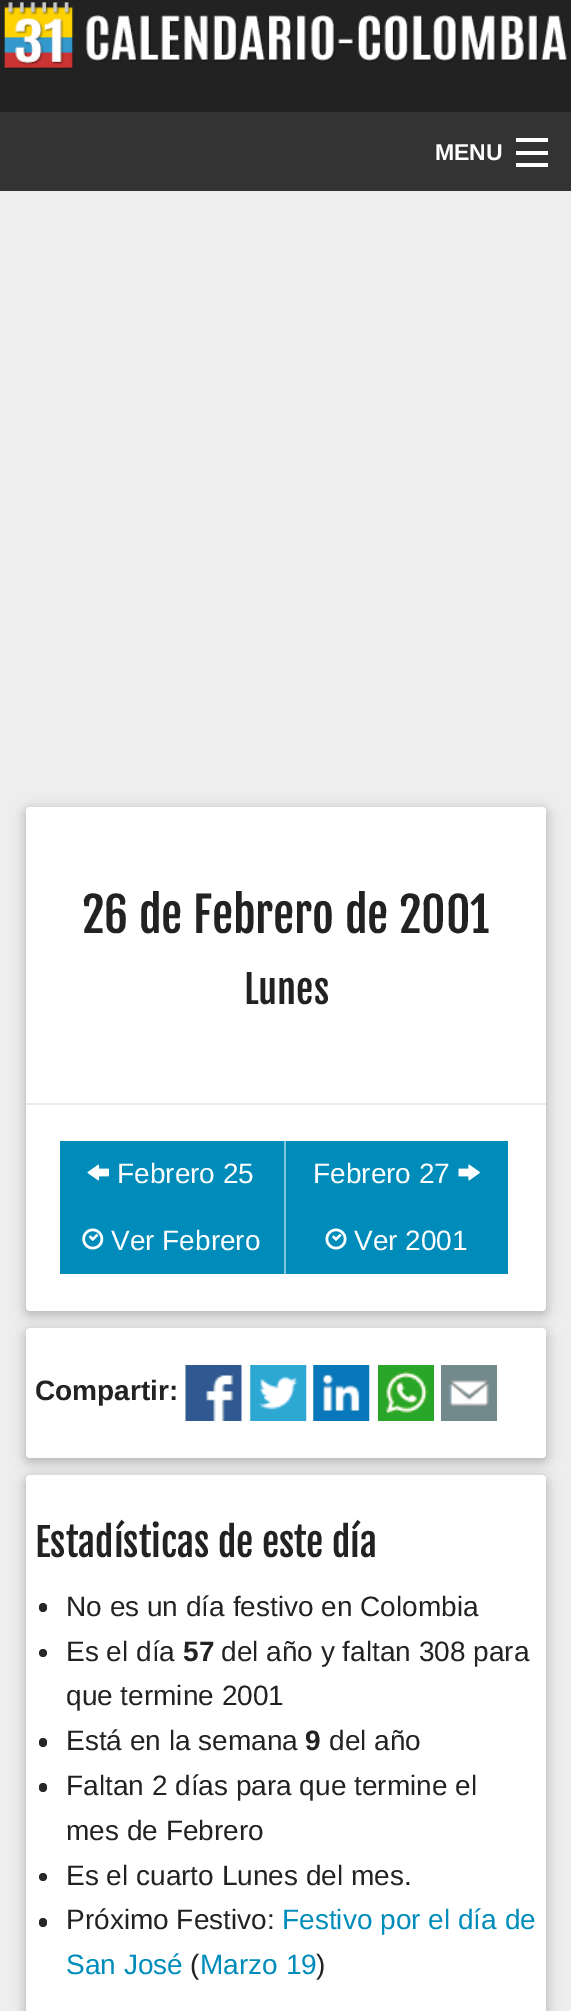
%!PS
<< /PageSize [571 2011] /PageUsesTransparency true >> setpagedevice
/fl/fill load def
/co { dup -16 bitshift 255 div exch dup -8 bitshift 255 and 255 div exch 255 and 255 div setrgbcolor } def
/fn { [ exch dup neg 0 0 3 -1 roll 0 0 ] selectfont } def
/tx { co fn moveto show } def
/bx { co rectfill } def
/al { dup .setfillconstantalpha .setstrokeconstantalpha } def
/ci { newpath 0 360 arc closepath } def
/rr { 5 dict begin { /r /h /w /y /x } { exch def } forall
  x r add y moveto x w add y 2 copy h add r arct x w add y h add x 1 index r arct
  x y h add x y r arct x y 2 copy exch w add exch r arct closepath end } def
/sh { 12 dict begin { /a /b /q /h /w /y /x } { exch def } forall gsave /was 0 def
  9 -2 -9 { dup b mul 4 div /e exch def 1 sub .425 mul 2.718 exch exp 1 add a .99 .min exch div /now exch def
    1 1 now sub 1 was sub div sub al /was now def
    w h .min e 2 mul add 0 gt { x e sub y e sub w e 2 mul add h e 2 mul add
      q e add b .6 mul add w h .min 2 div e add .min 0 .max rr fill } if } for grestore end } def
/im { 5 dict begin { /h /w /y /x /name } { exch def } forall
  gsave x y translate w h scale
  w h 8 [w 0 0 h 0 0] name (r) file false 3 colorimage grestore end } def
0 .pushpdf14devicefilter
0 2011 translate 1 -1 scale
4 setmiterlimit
0 0 571 2011 16#EEEEEE bx
0 0 571 112 16#222222 bx
(media/1.raw) 4 2 564 67 im
0 112 571 79 16#333333 bx
516 163 32 4 16#FFFFFF bx
516 151 32 4 16#FFFFFF bx
516 138 32 4 16#FFFFFF bx
16#000000 co
26 810 520 504 4 9 .12 sh
26 810 520 504 4 4.5 .16 sh
16#FFFFFF co
26 807 520 504 4 rr fl
26 1103 520 2 16#ECECEC bx
60 1141 224 133 16#008CBA bx
(media/2.raw) 87 1164 22 17 im
286 1141 222 133 16#008CBA bx
284 1141 2 133 16#80C6DD bx
(media/3.raw) 458 1164 22 17 im
(media/4.raw) 82 1228 22 22 im
(media/5.raw) 325 1228 22 22 im
16#000000 co
26 1332 520 129 4 9 .12 sh
26 1332 520 129 4 4.5 .16 sh
16#FFFFFF co
26 1328 520 130 4 rr fl
(media/6.raw) 185 1365 57 56 im
(media/7.raw) 250 1365 57 56 im
(media/8.raw) 313 1365 57 56 im
(media/9.raw) 378 1365 56 56 im
(media/10.raw) 441 1365 56 56 im
16#000000 co
26 1479 520 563 4 9 .12 sh
26 1479 520 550 4 4.5 .16 sh
16#FFFFFF co
26 1475 520 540 4 rr fl
16#272727 co
39 1603 8 9 4 rr fl
43 1653 4 ci fl
39 1738 8 9 4 rr fl
39 1783 8 9 4 rr fl
43 1877 4 ci fl
39 1918 8 9 4 rr fl
(MENU) 435 160 /LiberationSans-Bold 23 16#FFFFFF tx
(26 de Febrero de 2001) 82 933 /FjallaOne-Regular 47.25 16#222222 tx
(Lunes) 244 1004 /FjallaOne-Regular 38.5 16#222222 tx
(Febrero 25) 117 1183 /LiberationSans-Regular 28 16#FFFFFF tx
(Febrero 27) 313 1183 /LiberationSans-Regular 28 16#FFFFFF tx
(Ver Febrero) 111 1250 /LiberationSans-Regular 28 16#FFFFFF tx
(Ver 2001) 354 1250 /LiberationSans-Regular 28 16#FFFFFF tx
(Compartir:) 35 1400 /LiberationSans-Bold 28 16#222222 tx
(Estadísticas de este día) 35 1557 /FjallaOne-Regular 38.5 16#222222 tx
(No es un día festivo en Colombia) 66 1616 /LiberationSans-Regular 28 16#222222 tx
(Es el día) 66 1661 /LiberationSans-Regular 28 16#222222 tx
(57) 183 1661 /LiberationSans-Bold 28 16#222222 tx
(del año y faltan 308 para) 221 1661 /LiberationSans-Regular 28 16#222222 tx
(que termine 2001) 66 1705 /LiberationSans-Regular 28 16#222222 tx
(Está en la semana) 66 1750 /LiberationSans-Regular 28 16#222222 tx
(9) 305 1750 /LiberationSans-Bold 28 16#222222 tx
(del año) 329 1750 /LiberationSans-Regular 28 16#222222 tx
(Faltan 2 días para que termine el) 66 1795 /LiberationSans-Regular 28 16#222222 tx
(mes de Febrero) 66 1840 /LiberationSans-Regular 28 16#222222 tx
(Es el cuarto Lunes del mes.) 66 1885 /LiberationSans-Regular 28 16#222222 tx
(Próximo Festivo:) 66 1929 /LiberationSans-Regular 28 16#222222 tx
(Festivo por el día de) 282 1929 /LiberationSans-Regular 28 16#008CBA tx
(San José) 66 1974 /LiberationSans-Regular 28 16#008CBA tx
(\() 190 1974 /LiberationSans-Regular 28 16#222222 tx
(Marzo 19) 200 1974 /LiberationSans-Regular 28 16#008CBA tx
(\)) 316 1974 /LiberationSans-Regular 28 16#222222 tx
.poppdf14devicefilter showpage
